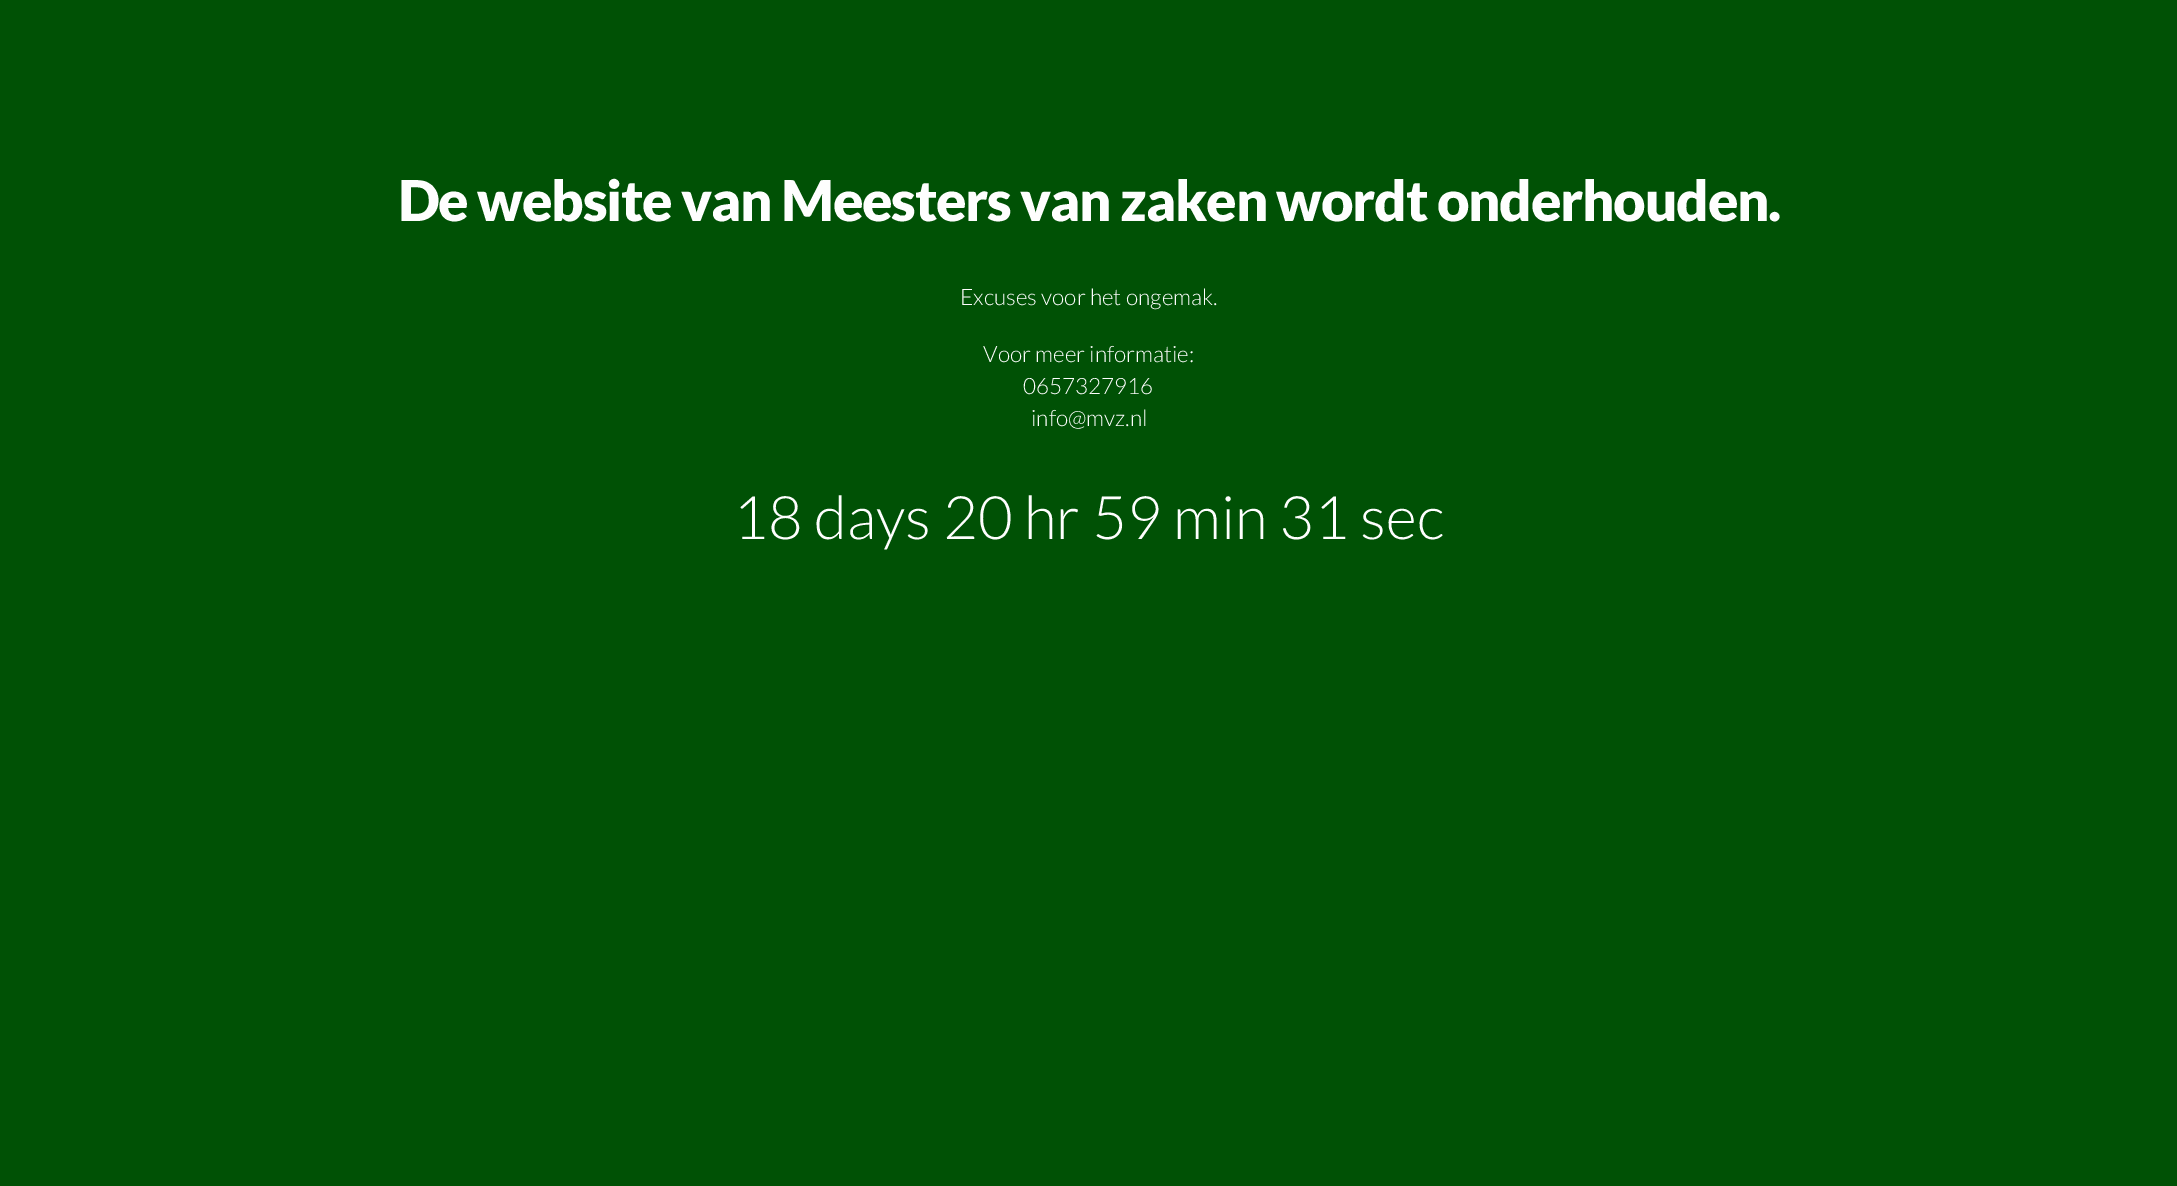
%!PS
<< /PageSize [2177 1186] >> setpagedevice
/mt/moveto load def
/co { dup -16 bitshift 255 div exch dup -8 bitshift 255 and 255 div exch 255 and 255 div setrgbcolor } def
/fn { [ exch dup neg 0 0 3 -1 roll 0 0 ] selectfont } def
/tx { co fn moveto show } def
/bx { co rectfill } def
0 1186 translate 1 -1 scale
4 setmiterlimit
0 0 2177 1186 16#005105 bx
/Lato-Black 56.25 fn
16#FEFEFE co
398 221 mt -1.25 0 (De website van Meesters van zaken wordt onderhouden.) ashow
(Excuses voor het ongemak.) 960 305 /Lato-Light 22.5 16#FEFEFE tx
(Voor meer informatie:) 983 362 /Lato-Light 22.5 16#FEFEFE tx
(0657327916) 1023 394 /Lato-Light 22.5 16#FEFEFE tx
(info@mvz.nl) 1031 426 /Lato-Light 22.5 16#FEFEFE tx
(18 days 20 hr 59 min 31 sec) 733 539 /Lato-Light 60 16#FEFEFE tx
showpage
